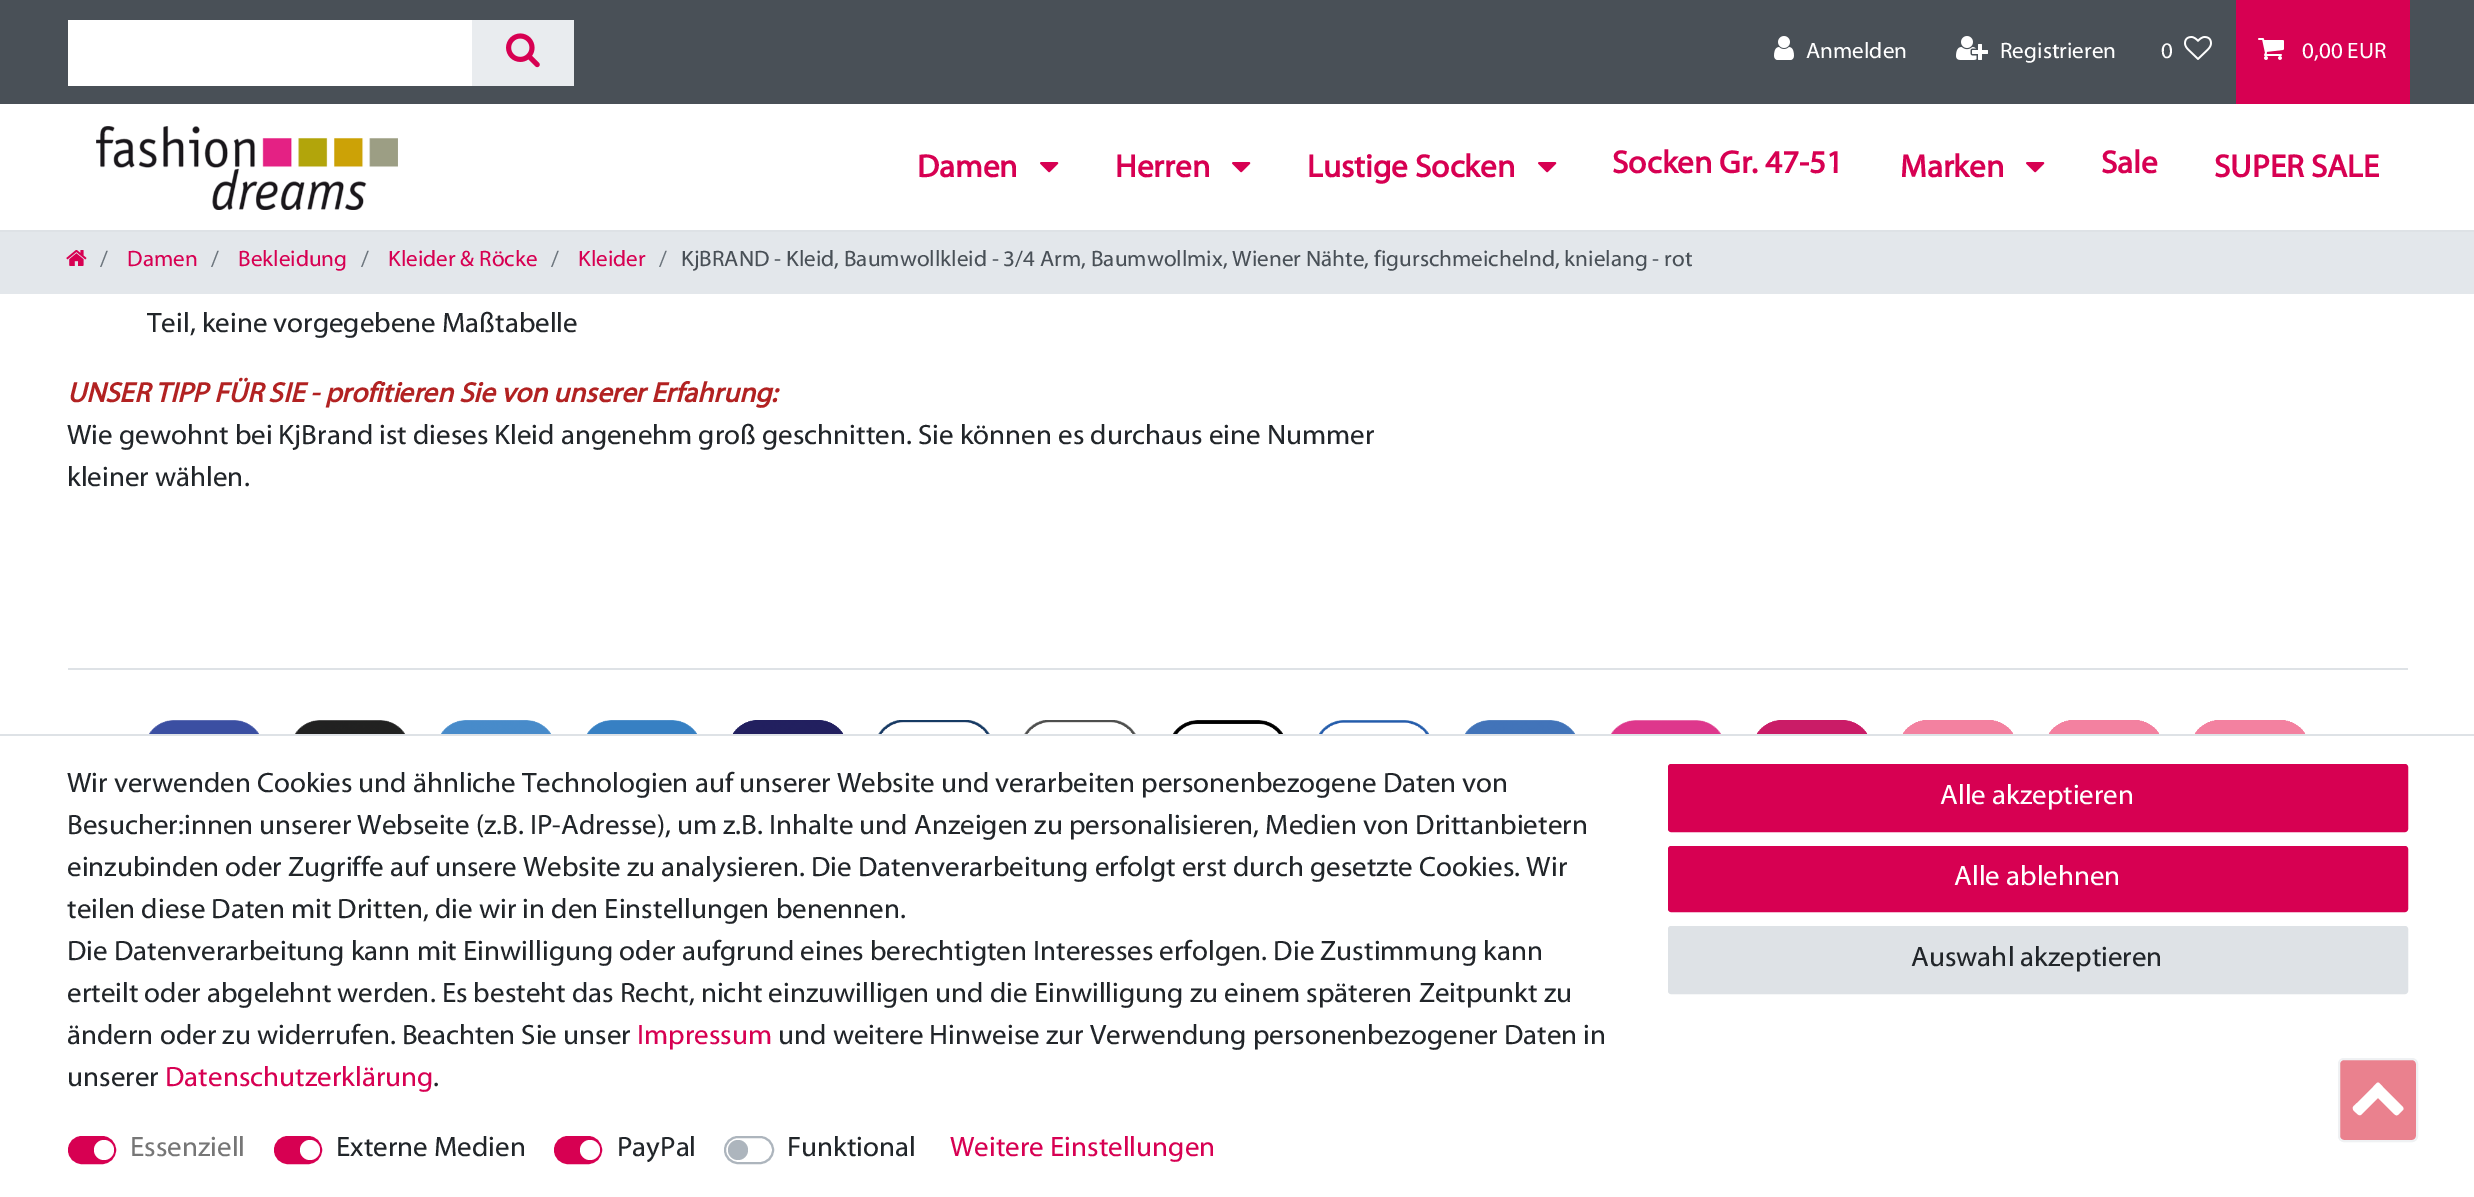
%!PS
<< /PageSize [2474 1197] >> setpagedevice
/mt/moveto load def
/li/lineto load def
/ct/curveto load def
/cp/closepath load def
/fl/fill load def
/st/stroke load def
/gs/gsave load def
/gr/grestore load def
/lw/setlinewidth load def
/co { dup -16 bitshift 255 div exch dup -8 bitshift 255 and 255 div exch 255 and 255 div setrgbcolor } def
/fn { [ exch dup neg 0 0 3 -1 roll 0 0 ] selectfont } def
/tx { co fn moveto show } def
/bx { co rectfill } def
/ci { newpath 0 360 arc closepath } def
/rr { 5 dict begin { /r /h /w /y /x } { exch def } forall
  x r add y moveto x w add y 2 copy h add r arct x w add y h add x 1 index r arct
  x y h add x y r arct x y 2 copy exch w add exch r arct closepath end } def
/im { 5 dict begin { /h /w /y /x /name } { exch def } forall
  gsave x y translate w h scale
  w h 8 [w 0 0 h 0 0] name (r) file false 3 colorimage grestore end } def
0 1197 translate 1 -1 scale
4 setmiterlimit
0 0 2474 1197 16#FFFFFF bx
0 0 2474 104 16#495057 bx
68 20 404 66 16#FFFFFF bx
472 20 102 66 16#E9ECEF bx
(media/1.raw) 506 33 34 35 im
(media/2.raw) 1774 36 20 24 im
(media/3.raw) 1956 36 32 24 im
(media/4.raw) 2184 36 28 24 im
2236 0 174 104 16#D70052 bx
(media/5.raw) 2258 38 26 22 im
0 230 2474 2 16#DEE2E6 bx
(media/6.raw) 96 126 302 84 im
(media/7.raw) 1040 162 19 11 im
(media/7.raw) 1232 162 19 11 im
(media/7.raw) 1538 162 19 11 im
(media/7.raw) 2026 162 19 11 im
0 232 2474 62 16#E3E7EB bx
(media/8.raw) 66 250 21 16 im
68 668 2340 2 16#DEE2E6 bx
(media/9.raw) 148 720 112 14 im
(media/10.raw) 294 720 112 14 im
(media/11.raw) 440 720 112 14 im
(media/12.raw) 586 720 112 14 im
(media/13.raw) 732 720 112 14 im
(media/14.raw) 878 720 112 14 im
(media/15.raw) 1024 720 112 14 im
(media/16.raw) 1172 720 112 14 im
(media/17.raw) 1318 720 112 14 im
(media/18.raw) 1464 720 112 14 im
(media/19.raw) 1610 720 112 14 im
(media/20.raw) 1756 720 112 14 im
(media/21.raw) 1902 720 112 14 im
(media/22.raw) 2048 720 112 14 im
(media/21.raw) 2194 720 112 14 im
0 734 2474 2 16#DEE2E6 bx
16#D70052 co
69 1137 46 26 13 rr gs fl gr
2 lw
st
16#FFFFFF co
104 1150 10 ci fl
16#D70052 co
275 1137 46 26 13 rr gs fl gr
st
16#FFFFFF co
310 1150 10 ci fl
16#D70052 co
555 1137 46 26 13 rr gs fl gr
st
16#FFFFFF co
590 1150 10 ci fl
16#ADB5BD co
725 1137 48 26 13 rr st
738 1150 10 ci fl
16#D70052 co
1669 765 738 66 2 rr gs fl gr
st
1669 847 738 64 2 rr gs fl gr
st
16#DEE2E6 co
1669 927 738 66 2 rr gs fl gr
st
16#EA818E co
2339 1059 78 82 5 rr gs fl gr
16#EFF1F3 co
st
16#FFFFFF co
2403 1110 mt 2397 1115 2398 1118 2392 1112 ct 2378 1098 li 2364 1112 li 2359 1117 2360 1116 2354 1111 ct 2351 1107 2354 1106 2357 1103 ct 2373 1087 li 2379 1081 2377 1081 2383 1087 ct 2399 1103 li 2399 1104 2405 1107 2403 1110 ct cp fl
(Anmelden) 1806 58 /Myriad-Regular 22.4 16#FFFFFF tx
(Registrieren) 2000 58 /Myriad-Regular 22.4 16#FFFFFF tx
(0) 2161 58 /Myriad-Regular 22.4 16#FFFFFF tx
(0,00 EUR) 2302 58 /Myriad-Regular 22.4 16#FFFFFF tx
(Damen) 917 177 /Myriad-Bold 32 16#D70052 tx
(Herren) 1115 177 /Myriad-Bold 32 16#D70052 tx
(Lustige Socken) 1307 177 /Myriad-Bold 32 16#D70052 tx
(Socken Gr. 47-51) 1612 173 /Myriad-Bold 32 16#D70052 tx
(Marken) 1900 177 /Myriad-Bold 32 16#D70052 tx
(Sale) 2101 173 /Myriad-Bold 32 16#D70052 tx
(SUPER SALE) 2214 177 /Myriad-Bold 32 16#D70052 tx
(/) 100 266 /Myriad-Regular 22.4 16#6C757D tx
(Damen) 127 266 /Myriad-Regular 22.4 16#D70052 tx
(/) 211 266 /Myriad-Regular 22.4 16#6C757D tx
(Bekleidung) 238 266 /Myriad-Regular 22.4 16#D70052 tx
(/) 361 266 /Myriad-Regular 22.4 16#6C757D tx
(Kleider & Röcke) 388 266 /Myriad-Regular 22.4 16#D70052 tx
(/) 551 266 /Myriad-Regular 22.4 16#6C757D tx
(Kleider) 578 266 /Myriad-Regular 22.4 16#D70052 tx
(/) 659 266 /Myriad-Regular 22.4 16#6C757D tx
(KjBRAND - Kleid, Baumwollkleid - 3/4 Arm, Baumwollmix, Wiener Nähte, figurschmeichelnd, knielang - rot) 681 266 /Myriad-Regular 22.4 16#495057 tx
(Teil, keine vorgegebene Maßtabelle) 147 332 /Myriad-Regular 28 16#212529 tx
(UNSER TIPP FÜR SIE - profitieren Sie von unserer Erfahrung:) 67 402 /Myriad-BoldItalic 28 16#B22222 tx
(Wie gewohnt bei KjBrand ist dieses Kleid angenehm groß geschnitten. Sie können es durchaus eine Nummer) 67 444 /Myriad-Regular 28 16#212529 tx
(kleiner wählen.) 67 486 /Myriad-Regular 28 16#212529 tx
(Wir verwenden Cookies und ähnliche Technologien auf unserer Website und verarbeiten personenbezogene Daten von) 67 792 /Myriad-Regular 28 16#212529 tx
(Besucher:innen unserer Webseite \(z.B. IP-Adresse\), um z.B. Inhalte und Anzeigen zu personalisieren, Medien von Drittanbietern) 67 834 /Myriad-Regular 28 16#212529 tx
(einzubinden oder Zugriffe auf unsere Website zu analysieren. Die Datenverarbeitung erfolgt erst durch gesetzte Cookies. Wir) 67 876 /Myriad-Regular 28 16#212529 tx
(teilen diese Daten mit Dritten, die wir in den Einstellungen benennen.) 67 918 /Myriad-Regular 28 16#212529 tx
(Die Datenverarbeitung kann mit Einwilligung oder aufgrund eines berechtigten Interesses erfolgen. Die Zustimmung kann) 67 960 /Myriad-Regular 28 16#212529 tx
(erteilt oder abgelehnt werden. Es besteht das Recht, nicht einzuwilligen und die Einwilligung zu einem späteren Zeitpunkt zu) 67 1002 /Myriad-Regular 28 16#212529 tx
(ändern oder zu widerrufen. Beachten Sie unser) 67 1044 /Myriad-Regular 28 16#212529 tx
(Impressum) 637 1044 /Myriad-Regular 28 16#D70052 tx
(und weitere Hinweise zur Verwendung personenbezogener Daten in) 778 1044 /Myriad-Regular 28 16#212529 tx
(unserer) 67 1086 /Myriad-Regular 28 16#212529 tx
(Datenschutzerklärung) 165 1086 /Myriad-Regular 28 16#D70052 tx
(.) 433 1086 /Myriad-Regular 28 16#212529 tx
(Essenziell) 130 1156 /Myriad-Regular 28 16#767676 tx
(Externe Medien) 336 1156 /Myriad-Regular 28 16#212529 tx
(PayPal) 617 1156 /Myriad-Regular 28 16#212529 tx
(Funktional) 787 1156 /Myriad-Regular 28 16#212529 tx
(Weitere Einstellungen) 950 1156 /Myriad-Regular 28 16#D70052 tx
(Alle akzeptieren) 1940 804 /Myriad-Regular 28 16#FFFFFF tx
(Alle ablehnen) 1954 885 /Myriad-Regular 28 16#FFFFFF tx
(Auswahl akzeptieren) 1911 966 /Myriad-Regular 28 16#212529 tx
showpage
